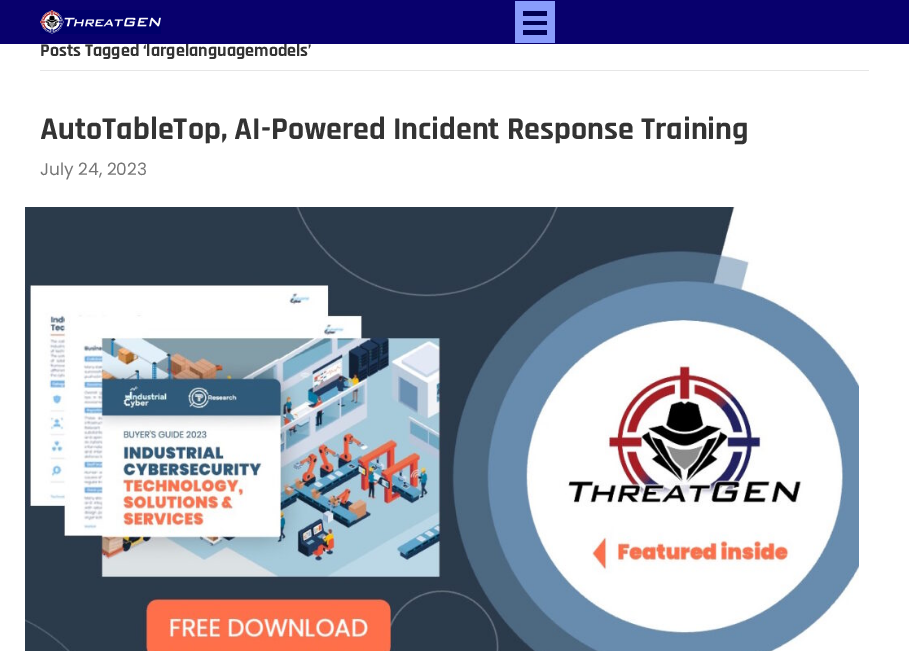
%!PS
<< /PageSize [909 651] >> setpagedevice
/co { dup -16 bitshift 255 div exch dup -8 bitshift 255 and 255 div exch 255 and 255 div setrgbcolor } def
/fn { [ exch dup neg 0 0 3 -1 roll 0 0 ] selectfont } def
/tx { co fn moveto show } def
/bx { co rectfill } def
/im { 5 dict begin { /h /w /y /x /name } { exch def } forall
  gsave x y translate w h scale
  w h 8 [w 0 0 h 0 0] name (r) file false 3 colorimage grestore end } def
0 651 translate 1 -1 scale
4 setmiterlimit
0 0 909 651 16#FFFFFF bx
40 70 829 1 16#E6E6E6 bx
(media/2.raw) 25 207 834 444 im
(Posts Tagged ‘largelanguagemodels’) 40 56 /Rajdhani-Bold 18 16#333333 tx
0 0 909 44 16#08006D bx
515 1 40 42 16#899CFC bx
523 30 24 5 16#000154 bx
523 21 24 4 16#000154 bx
523 11 24 5 16#000154 bx
(media/1.raw) 40 10 121 24 im
(AutoTableTop, AI-Powered Incident Response Training) 40 139 /Rajdhani-Bold 32 16#333333 tx
(July 24, 2023) 40 175 /Poppins-Regular 17 16#757575 tx
showpage
